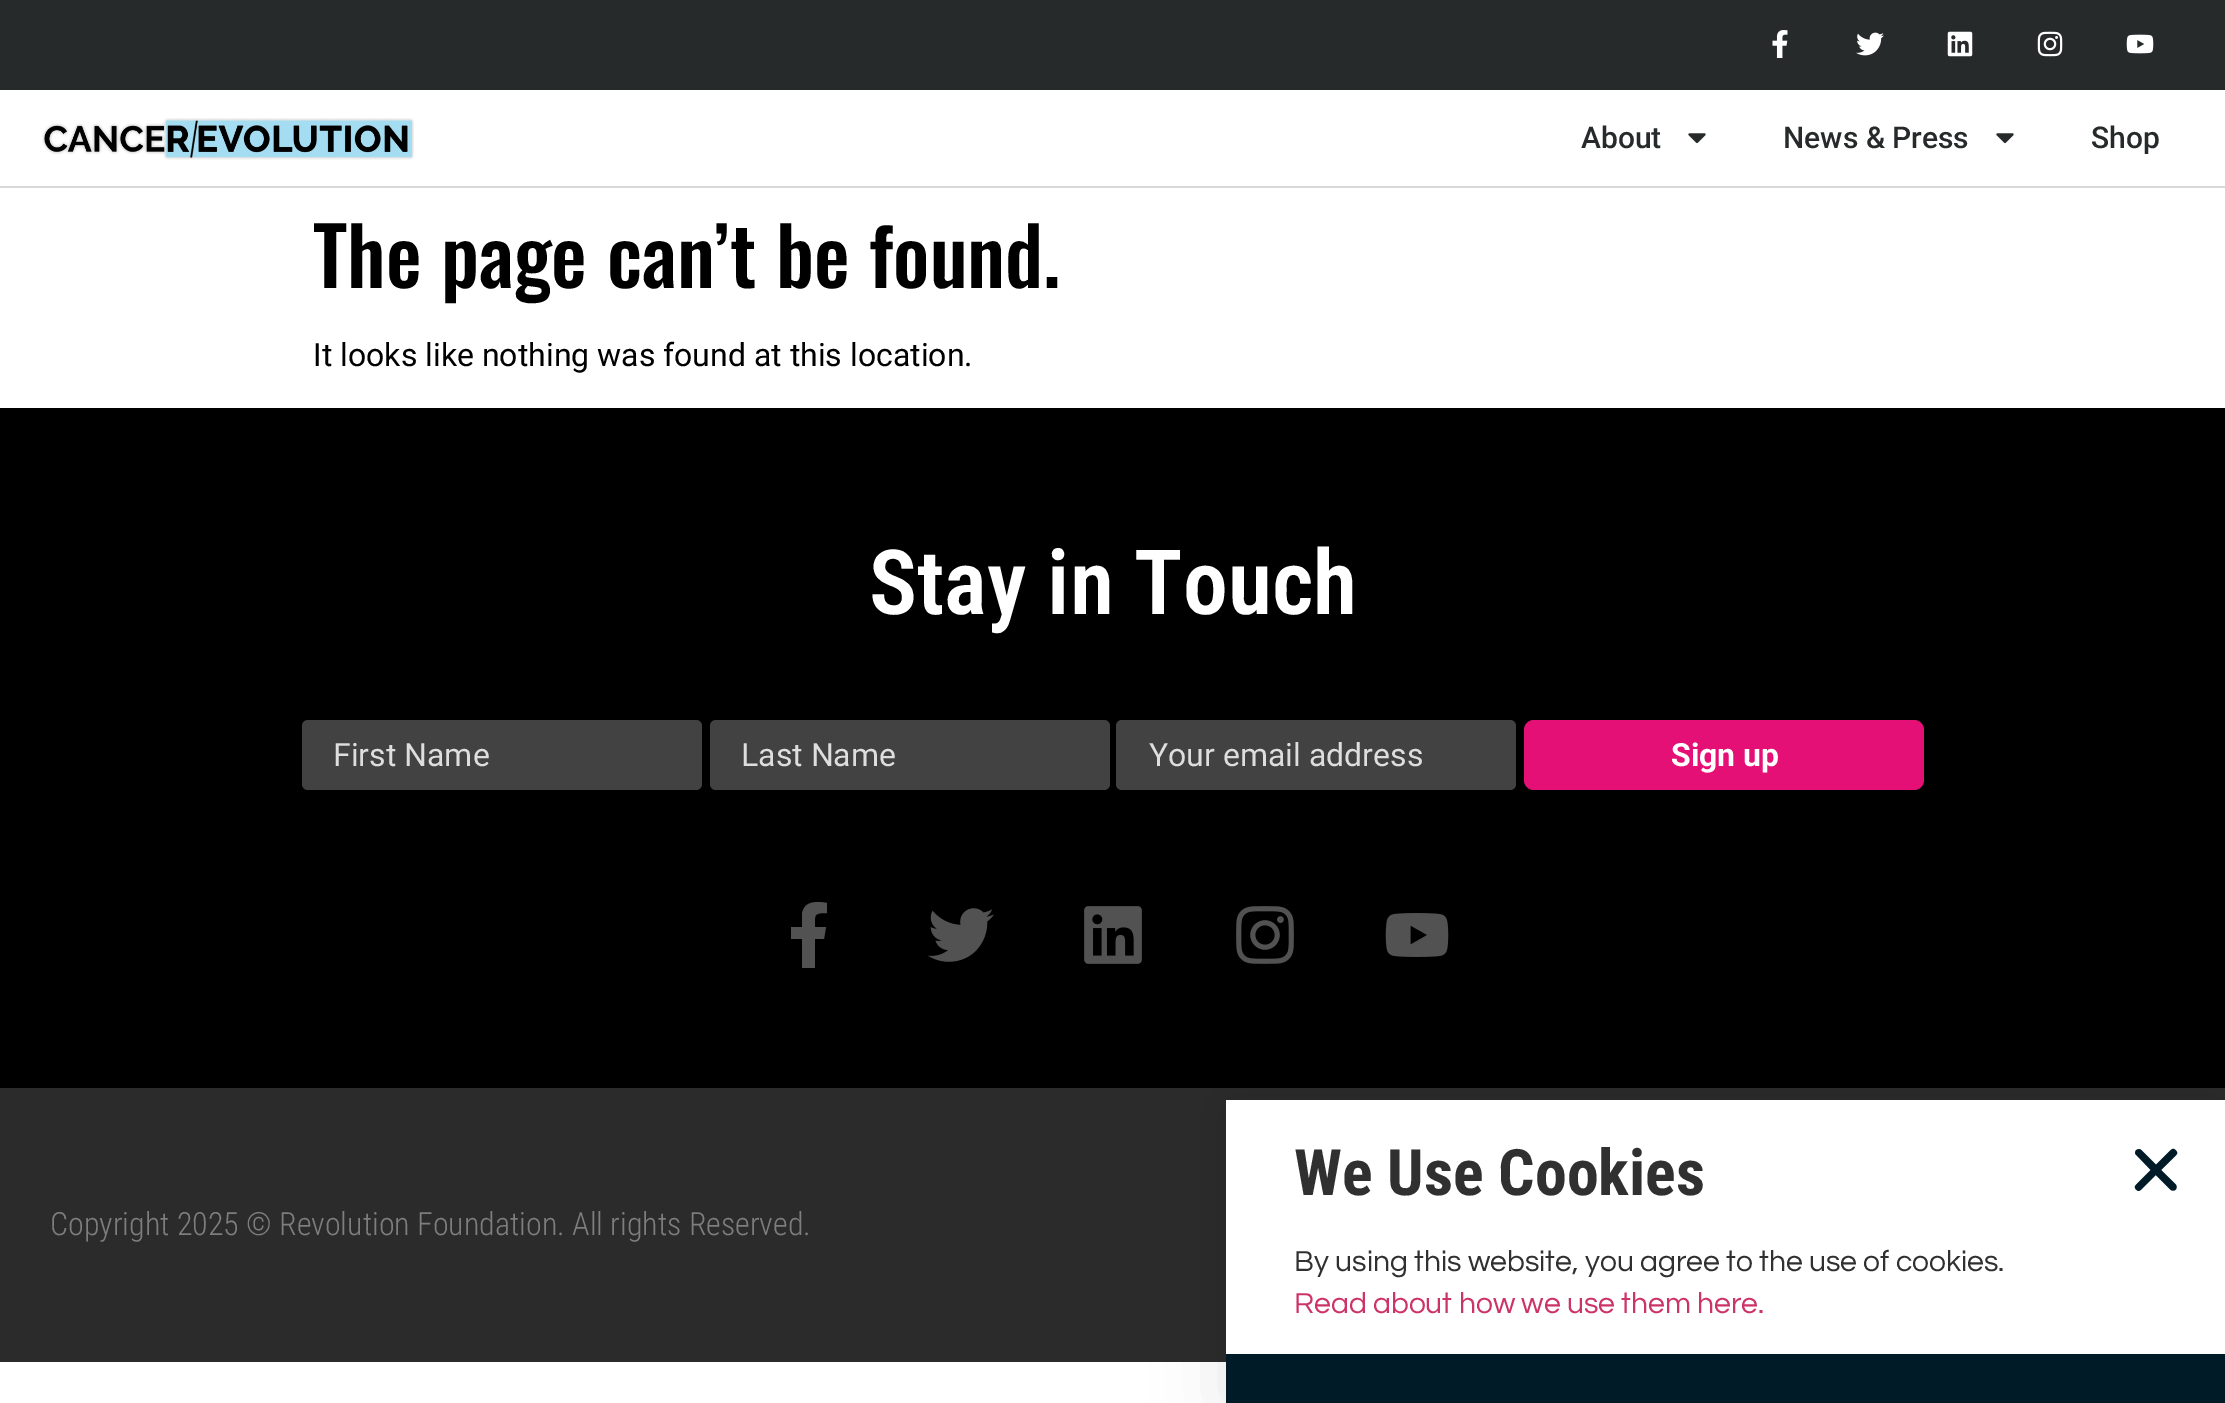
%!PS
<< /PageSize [2225 1403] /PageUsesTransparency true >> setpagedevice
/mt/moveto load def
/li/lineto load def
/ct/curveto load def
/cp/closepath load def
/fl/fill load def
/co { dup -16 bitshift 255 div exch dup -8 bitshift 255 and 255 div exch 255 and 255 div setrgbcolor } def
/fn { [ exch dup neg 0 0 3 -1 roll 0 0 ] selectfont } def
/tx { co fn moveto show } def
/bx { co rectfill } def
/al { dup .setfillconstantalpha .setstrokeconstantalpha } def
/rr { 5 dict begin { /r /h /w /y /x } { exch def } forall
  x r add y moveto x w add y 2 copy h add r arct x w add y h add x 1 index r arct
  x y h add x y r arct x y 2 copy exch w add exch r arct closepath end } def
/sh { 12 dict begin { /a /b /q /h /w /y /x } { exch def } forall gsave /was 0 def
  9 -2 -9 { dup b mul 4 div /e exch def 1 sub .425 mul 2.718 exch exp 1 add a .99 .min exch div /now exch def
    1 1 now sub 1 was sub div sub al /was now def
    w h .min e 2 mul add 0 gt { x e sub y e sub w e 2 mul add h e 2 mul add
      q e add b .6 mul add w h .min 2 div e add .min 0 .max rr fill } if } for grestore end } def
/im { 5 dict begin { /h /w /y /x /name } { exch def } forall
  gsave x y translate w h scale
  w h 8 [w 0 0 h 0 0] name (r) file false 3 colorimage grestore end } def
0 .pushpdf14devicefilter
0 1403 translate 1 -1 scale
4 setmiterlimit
0 0 2225 1403 16#FFFFFF bx
0 0 2225 90 16#262A2B bx
(media/1.raw) 1772 30 16 28 im
(media/2.raw) 1856 32 28 24 im
(media/3.raw) 1947 31 26 26 im
(media/4.raw) 2037 31 26 26 im
(media/5.raw) 2126 34 28 20 im
0 186 2225 2 16#D8D8D8 bx
(media/6.raw) 42 118 372 42 im
(media/7.raw) 1688 133 18 11 im
(media/7.raw) 1996 133 18 11 im
0 408 2225 680 16#000000 bx
16#424242 co
302 720 400 70 6 rr fl
710 720 400 70 6 rr fl
1116 720 400 70 6 rr fl
16#E51075 co
1524 720 400 70 10 rr fl
16#525252 co
824 939 mt 826 927 li 815 927 li 815 915 813 913 827 913 ct 827 903 li 816 901 804 901 802 914 ct 802 927 li 791 927 li 791 939 li 802 939 li 802 968 li 815 968 li 815 939 li cp fl
(media/8.raw) 928 908 66 54 im
(media/9.raw) 1084 906 58 58 im
(media/10.raw) 1236 906 58 58 im
(media/11.raw) 1385 913 64 44 im
0 1088 2225 274 16#2B2B2B bx
16#000000 co
1226 1100 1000 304 0 35 .1 sh
1226 1100 999 254 16#FFFFFF bx
1226 1354 999 49 16#001B28 bx
(media/12.raw) 2134 1148 44 43 im
(About) 1581 148 /Roboto-Medium 30 16#262A2B tx
(News & Press) 1783 148 /Roboto-Medium 30 16#262A2B tx
(Shop) 2091 148 /Roboto-Medium 30 16#262A2B tx
(The page can’t be found.) 313 288 /Oswald-Medium 80 16#000000 tx
(It looks like nothing was found at this location.) 313 366 /Roboto-Regular 32 16#000000 tx
(Stay in Touch) 869 614 /RobotoCondensed-SemiBold 90 16#FFFFFF tx
(First Name) 333 766 /Roboto-Regular 32 16#DEDEDE tx
(Last Name) 741 766 /Roboto-Regular 32 16#DEDEDE tx
(Your email address) 1149 766 /Roboto-Regular 32 16#DEDEDE tx
(Sign up) 1671 766 /Roboto-Bold 32 16#FFFFFF tx
(Copyright 2025 © Revolution Foundation. All rights Reserved.) 50 1235 /RobotoCondensed-Light 32 16#7E7E7E tx
(We Use Cookies) 1294 1195 /RobotoCondensed-Bold 64 16#303030 tx
(By using this website, you agree to the use of cookies.) 1294 1271 /Questrial-Regular 30 16#303030 tx
(Read about how we use them here.) 1294 1313 /Questrial-Regular 30 16#CC3366 tx
.poppdf14devicefilter showpage
